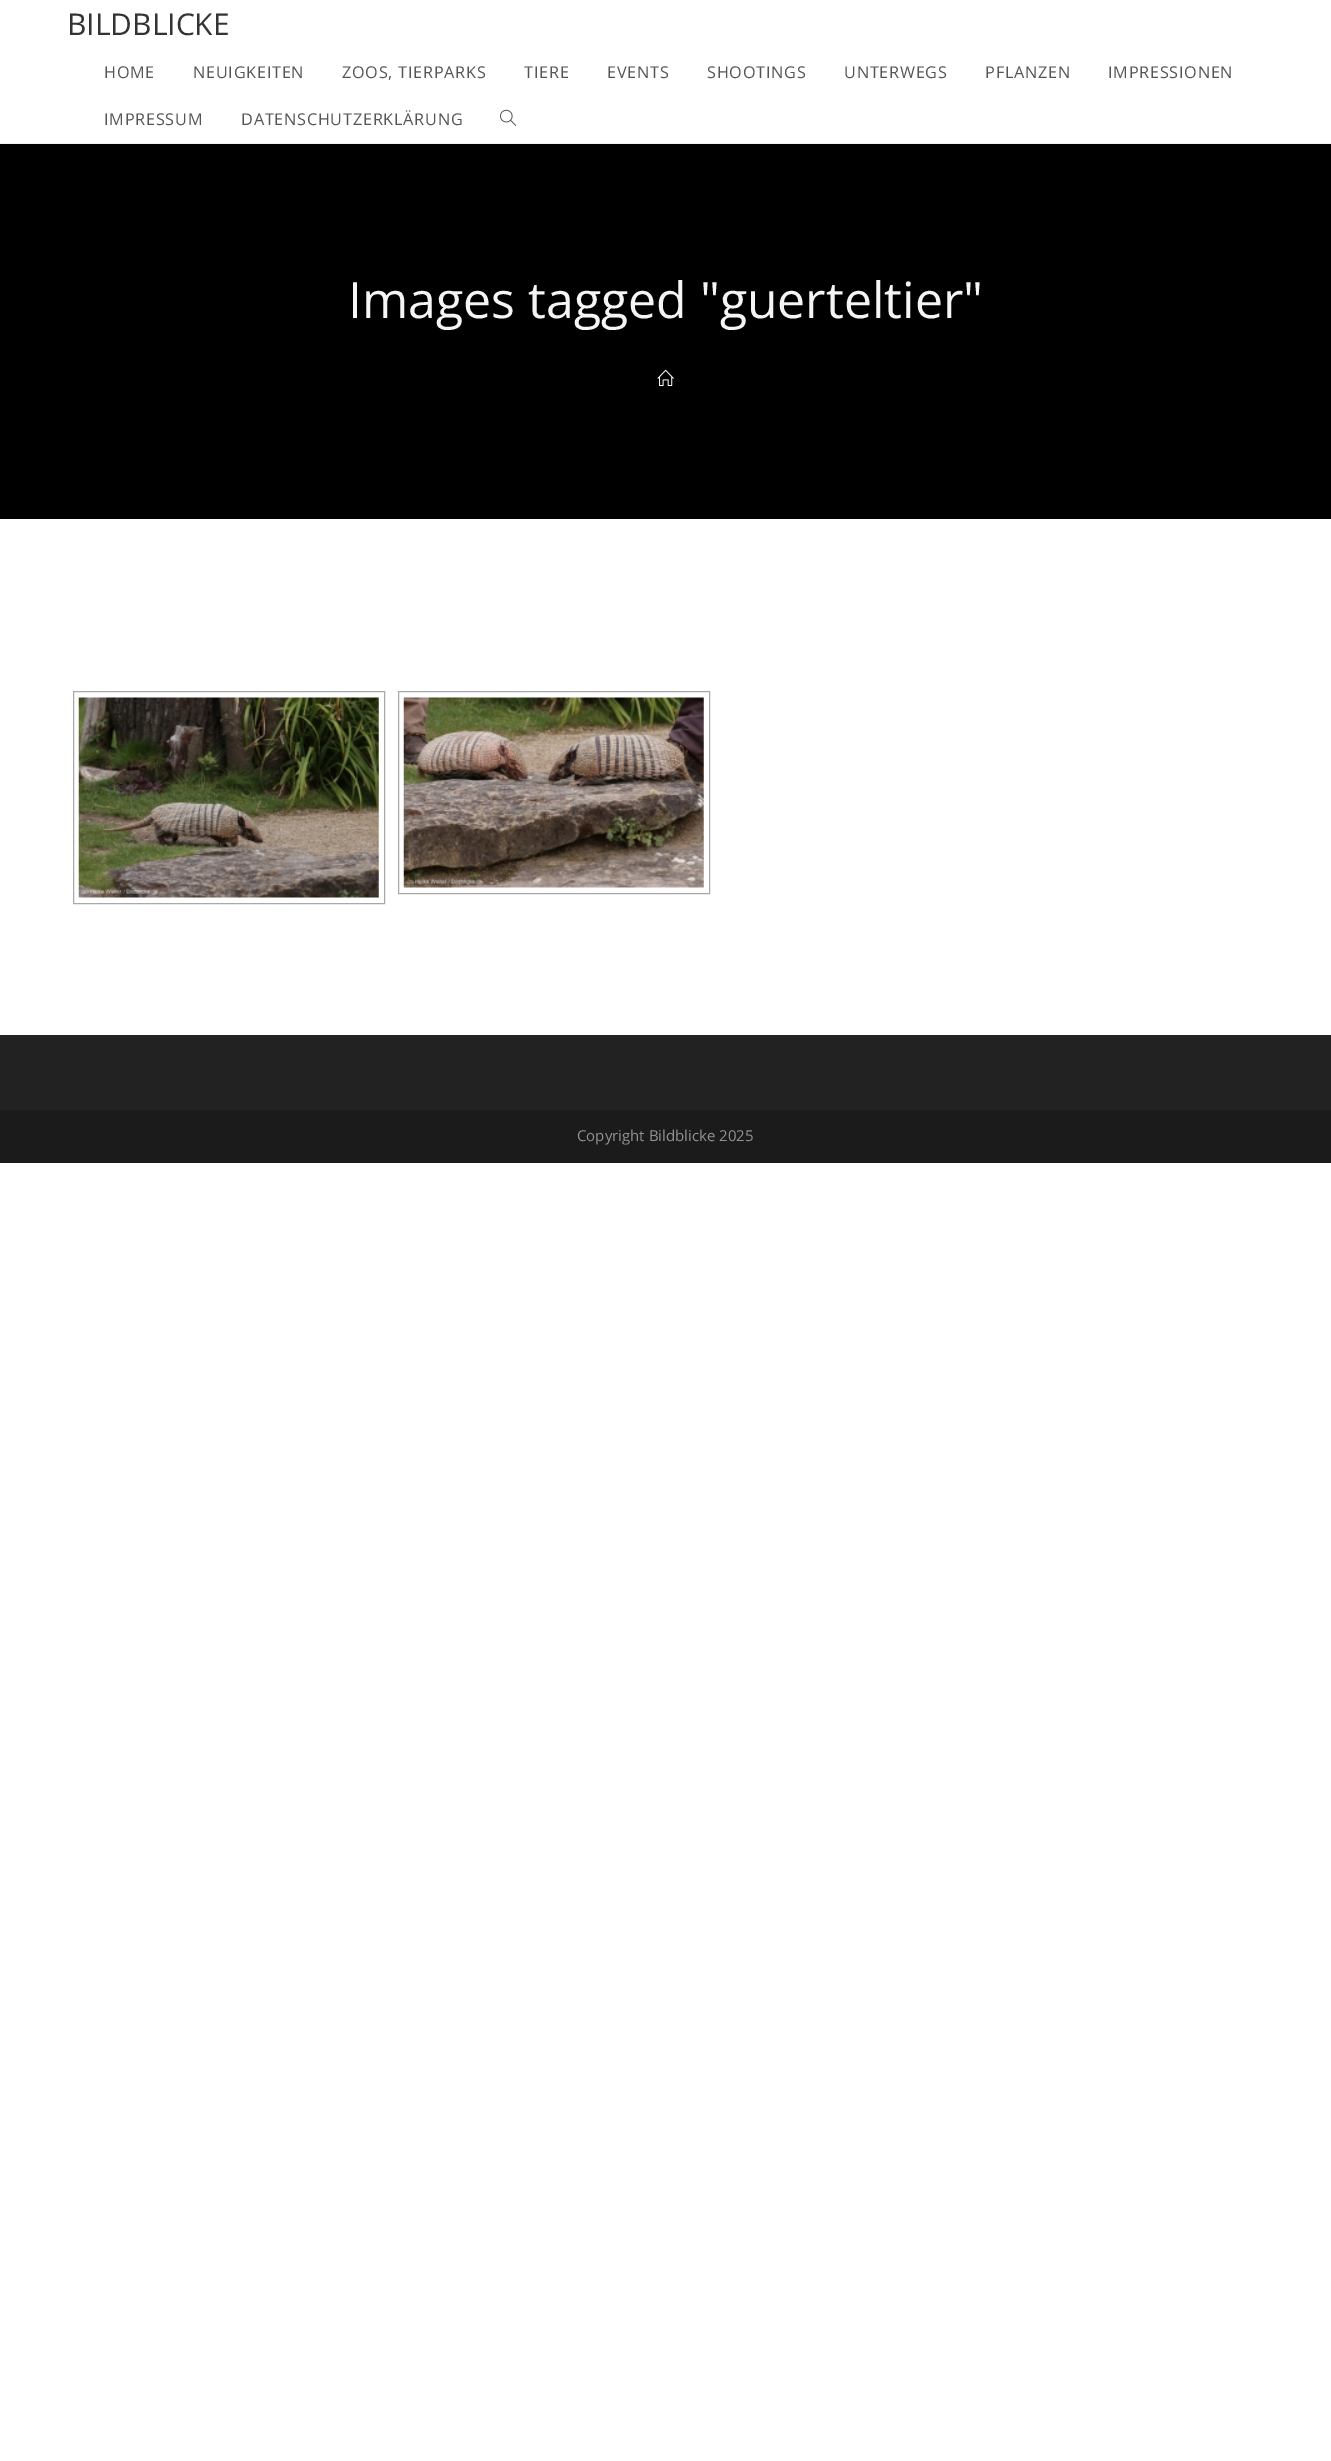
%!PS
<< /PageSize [1331 2461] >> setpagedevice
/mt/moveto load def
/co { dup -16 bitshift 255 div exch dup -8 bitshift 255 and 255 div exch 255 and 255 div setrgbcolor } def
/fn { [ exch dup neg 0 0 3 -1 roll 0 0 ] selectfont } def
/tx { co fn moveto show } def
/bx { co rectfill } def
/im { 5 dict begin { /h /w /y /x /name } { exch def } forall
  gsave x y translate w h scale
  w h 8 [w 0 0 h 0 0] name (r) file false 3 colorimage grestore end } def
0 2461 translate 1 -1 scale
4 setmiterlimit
0 0 1331 2461 16#FFFFFF bx
0 143 1331 1 16#F1F1F1 bx
(media/1.raw) 500 109 17 17 im
0 144 1331 375 16#000000 bx
(media/2.raw) 657 369 17 17 im
16#A9A9A9 co
73.5 691.5 311 212 rectstroke
(media/3.raw) 78 697 301 201 im
398.5 691.5 311 202 rectstroke
(media/4.raw) 403 697 301 191 im
0 1035 1331 75 16#222222 bx
0 1110 1331 53 16#1B1B1B bx
(BILDBLICKE) 67 35 /OpenSans-Regular 30 16#333333 tx
/OpenSans-Regular 16.25 fn
16#555555 co
104 78 mt .75 0 (HOME) ashow
193 78 mt .75 0 (NEUIGKEITEN) ashow
342 78 mt .75 0 (ZOOS, TIERPARKS) ashow
524 78 mt .75 0 (TIERE) ashow
607 78 mt .75 0 (EVENTS) ashow
707 78 mt .75 0 (SHOOTINGS) ashow
844 78 mt .75 0 (UNTERWEGS) ashow
985 78 mt .75 0 (PFLANZEN) ashow
1108 78 mt .75 0 (IMPRESSIONEN) ashow
104 125 mt .75 0 (IMPRESSUM) ashow
241 125 mt .75 0 (DATENSCHUTZERKLÄRUNG) ashow
(Images tagged "guerteltier") 348 318 /OpenSans-Regular 50 16#F5F5F5 tx
(Copyright Bildblicke 2025) 577 1141 /OpenSans-Regular 15 16#929292 tx
showpage
